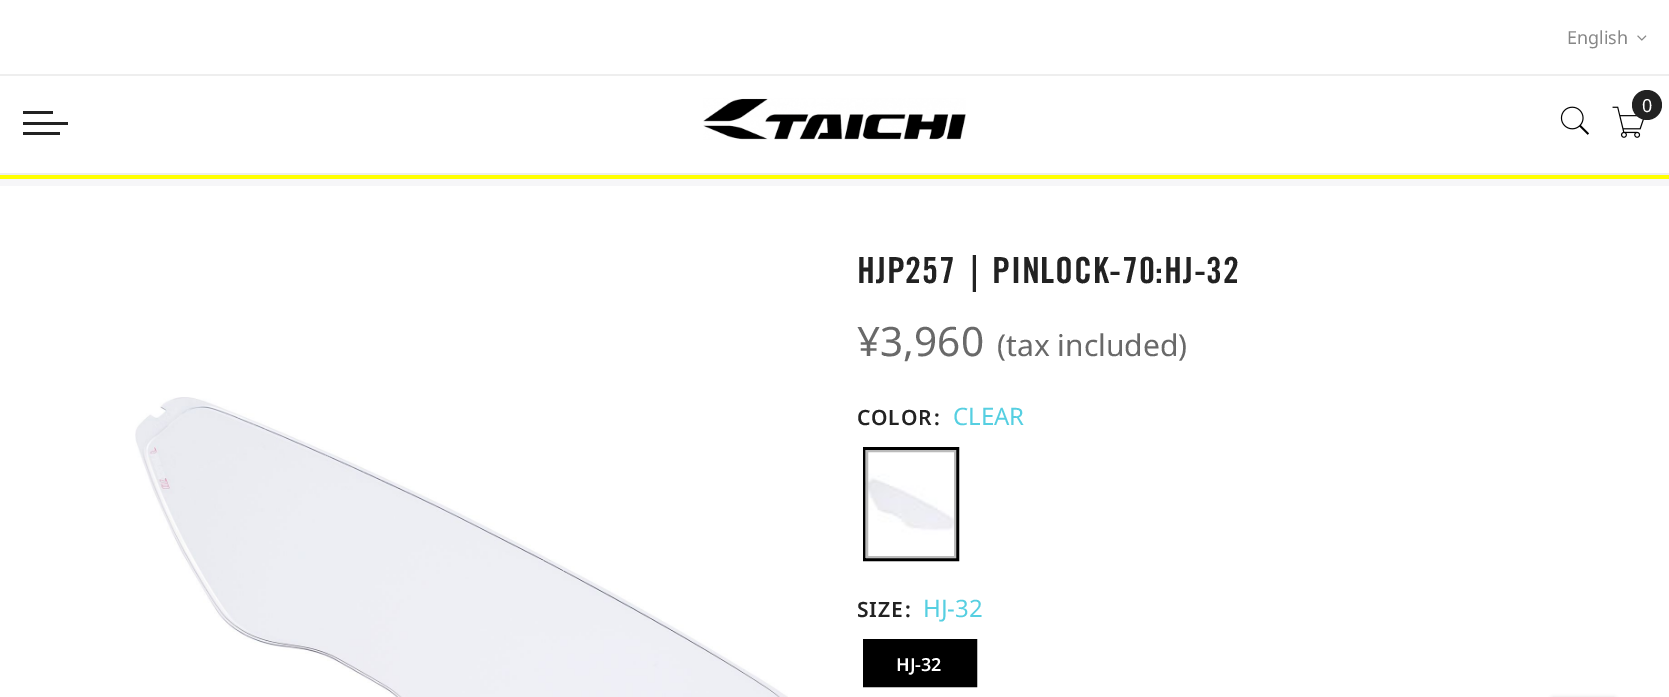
%!PS
<< /PageSize [1669 697] /PageUsesTransparency true >> setpagedevice
/mt/moveto load def
/fl/fill load def
/lw/setlinewidth load def
/co { dup -16 bitshift 255 div exch dup -8 bitshift 255 and 255 div exch 255 and 255 div setrgbcolor } def
/fn { [ exch dup neg 0 0 3 -1 roll 0 0 ] selectfont } def
/tx { co fn moveto show } def
/bx { co rectfill } def
/al { dup .setfillconstantalpha .setstrokeconstantalpha } def
/ci { newpath 0 360 arc closepath } def
/rr { 5 dict begin { /r /h /w /y /x } { exch def } forall
  x r add y moveto x w add y 2 copy h add r arct x w add y h add x 1 index r arct
  x y h add x y r arct x y 2 copy exch w add exch r arct closepath end } def
/sh { 12 dict begin { /a /b /q /h /w /y /x } { exch def } forall gsave /was 0 def
  9 -2 -9 { dup b mul 4 div /e exch def 1 sub .425 mul 2.718 exch exp 1 add a .99 .min exch div /now exch def
    1 1 now sub 1 was sub div sub al /was now def
    w h .min e 2 mul add 0 gt { x e sub y e sub w e 2 mul add h e 2 mul add
      q e add b .6 mul add w h .min 2 div e add .min 0 .max rr fill } if } for grestore end } def
/im { 5 dict begin { /h /w /y /x /name } { exch def } forall
  gsave x y translate w h scale
  w h 8 [w 0 0 h 0 0] name (r) file false 3 colorimage grestore end } def
0 .pushpdf14devicefilter
0 697 translate 1 -1 scale
4 setmiterlimit
0 0 1669 697 16#FFFFFF bx
0 175 1669 4 16#FFFF00 bx
0 74 1669 2 16#EEEEEE bx
(media/1.raw) 1637 35 10 6 im
(media/2.raw) 703 98 263 42 im
(media/3.raw) 1560 106 29 29 im
(media/4.raw) 1612 106 33 32 im
16#222222 co
1647 105 15 ci fl
23 111 30 3 16#222222 bx
23 122 45 3 16#222222 bx
23 132 37 3 16#222222 bx
0 173 1669 2 16#EEEEEE bx
0 179 1669 7 16#F6F6F8 bx
(media/5.raw) 135 397 653 300 im
16#000000 co
3 lw
864.5 448.5 93 111 rectstroke
(media/6.raw) 865 450 89 108 im
16#BBBBBB co
2 lw
867 451 88 106 rectstroke
16#000000 co
3 lw
864.5 640.5 111 45 rectstroke
866 642 108 42 16#000000 bx
1550 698 67 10 5 2 .2 sh
(English) 1567 44 /NotoSans-Regular 18 16#878787 tx
(0) 1642 112 /NotoSans-Regular 18 16#FFFFFF tx
/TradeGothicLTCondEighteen-Bold 36 fn
16#222222 co
857 283 mt .75 0 (HJP257) ashow
/WenQuanYiZenHei-Bold 36 fn
956 283 mt .75 0 (｜) ashow
/TradeGothicLTCondEighteen-Bold 36 fn
992 283 mt .75 0 (PINLOCK-70:HJ-32) ashow
(¥3,960) 857 356 /NotoSans-Regular 40.5 16#696969 tx
(\(tax included\)) 997 356 /NotoSans-Regular 30 16#696969 tx
/NotoSans-SemiBold 21 fn
16#222222 co
857 425 mt .75 0 (COLOR) ashow
934 425 mt .75 0 (:) ashow
(CLEAR) 953 425 /NotoSans-Regular 24 16#56CFE1 tx
/NotoSans-SemiBold 21 fn
16#222222 co
857 617 mt .75 0 (SIZE) ashow
905 617 mt .75 0 (:) ashow
(HJ-32) 923 617 /NotoSans-Regular 24 16#56CFE1 tx
(HJ-32) 896 671 /NotoSans-SemiBold 18 16#FFFFFF tx
.poppdf14devicefilter showpage
